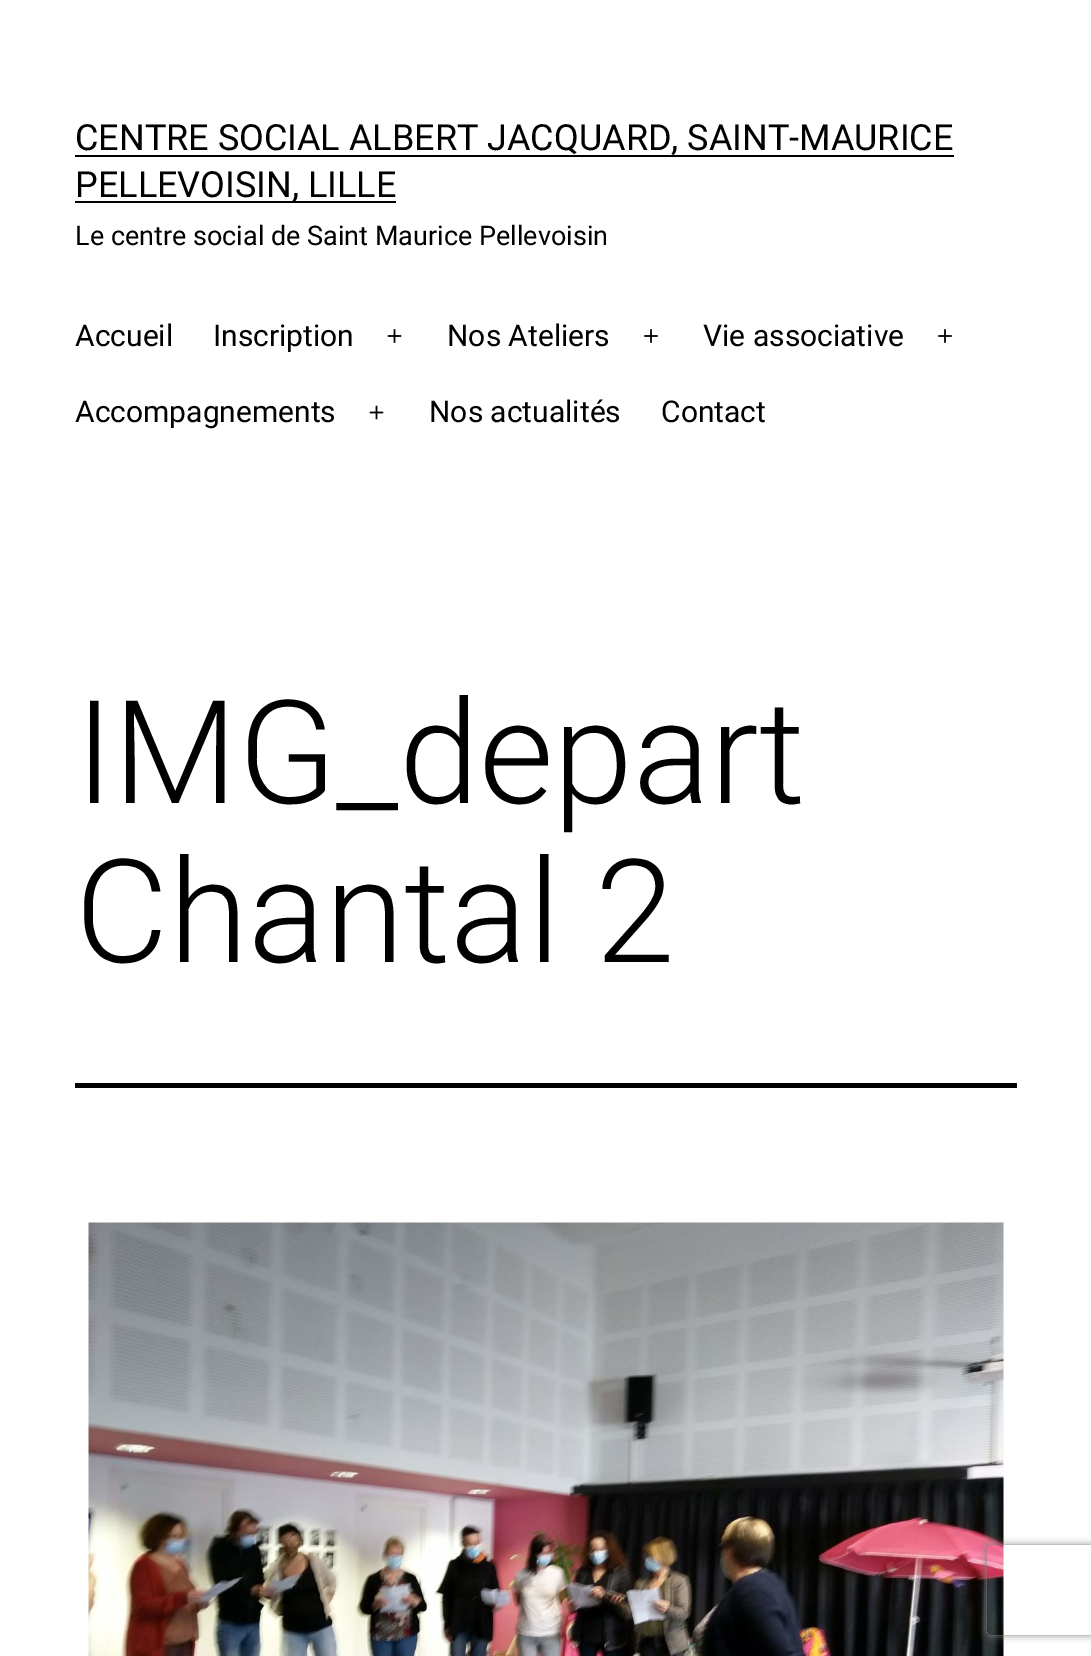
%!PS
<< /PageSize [1091 1656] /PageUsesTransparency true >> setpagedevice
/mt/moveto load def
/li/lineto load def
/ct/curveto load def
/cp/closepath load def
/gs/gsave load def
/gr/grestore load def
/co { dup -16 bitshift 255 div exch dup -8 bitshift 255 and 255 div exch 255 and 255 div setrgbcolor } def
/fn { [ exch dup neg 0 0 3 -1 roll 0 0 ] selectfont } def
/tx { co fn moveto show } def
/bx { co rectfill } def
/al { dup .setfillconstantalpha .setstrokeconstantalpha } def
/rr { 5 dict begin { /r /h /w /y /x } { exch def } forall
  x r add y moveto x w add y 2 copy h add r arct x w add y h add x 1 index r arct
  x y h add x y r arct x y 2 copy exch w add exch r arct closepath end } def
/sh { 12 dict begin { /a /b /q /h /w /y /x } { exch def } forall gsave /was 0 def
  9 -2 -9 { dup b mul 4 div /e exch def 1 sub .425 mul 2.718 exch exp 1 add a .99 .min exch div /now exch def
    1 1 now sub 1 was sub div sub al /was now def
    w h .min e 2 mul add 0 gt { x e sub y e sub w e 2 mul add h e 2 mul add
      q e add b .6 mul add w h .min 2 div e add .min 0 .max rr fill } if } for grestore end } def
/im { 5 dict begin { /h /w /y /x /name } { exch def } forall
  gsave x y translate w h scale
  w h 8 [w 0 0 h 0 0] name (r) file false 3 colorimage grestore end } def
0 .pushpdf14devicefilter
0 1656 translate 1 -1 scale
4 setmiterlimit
0 0 1091 1656 16#FFFFFF bx
75 155 879 2 16#000000 bx
75 201 321 2 16#000000 bx
(media/1.raw) 387 329 15 14 im
(media/2.raw) 644 329 14 14 im
(media/2.raw) 938 329 14 14 im
(media/3.raw) 369 405 15 15 im
75 1083 942 5 16#000000 bx
(media/4.raw) 88 1222 916 434 im
gs
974 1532 mt 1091 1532 li 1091 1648 li 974 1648 li cp 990 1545 mt 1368 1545 li 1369.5 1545 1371 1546.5 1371 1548 ct 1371 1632 li 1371 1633.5 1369.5 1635 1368 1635 ct 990 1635 li 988.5 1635 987 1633.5 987 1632 ct 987 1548 li 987 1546.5 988.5 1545 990 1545 ct cp eoclip newpath
16#808080 co
987 1545 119 90 3 4 1 sh
gr
(CENTRE SOCIAL ALBERT JACQUARD, SAINT-MAURICE) 75 150 /Roboto-Regular 36 16#000000 tx
(PELLEVOISIN, LILLE) 75 197 /Roboto-Regular 36 16#000000 tx
(Le centre social de Saint Maurice Pellevoisin) 75 245 /Roboto-Regular 27 16#000000 tx
(Accueil) 75 346 /Roboto-Regular 30 16#000000 tx
(Inscription) 213 346 /Roboto-Regular 30 16#000000 tx
(Nos Ateliers) 447 346 /Roboto-Regular 30 16#000000 tx
(Vie associative) 703 346 /Roboto-Regular 30 16#000000 tx
(Accompagnements) 75 422 /Roboto-Regular 30 16#000000 tx
(Nos actualités) 429 422 /Roboto-Regular 30 16#000000 tx
(Contact) 661 422 /Roboto-Regular 30 16#000000 tx
(IMG_depart) 75 803 /Roboto-Light 144 16#000000 tx
(Chantal 2) 75 962 /Roboto-Light 144 16#000000 tx
.poppdf14devicefilter showpage
